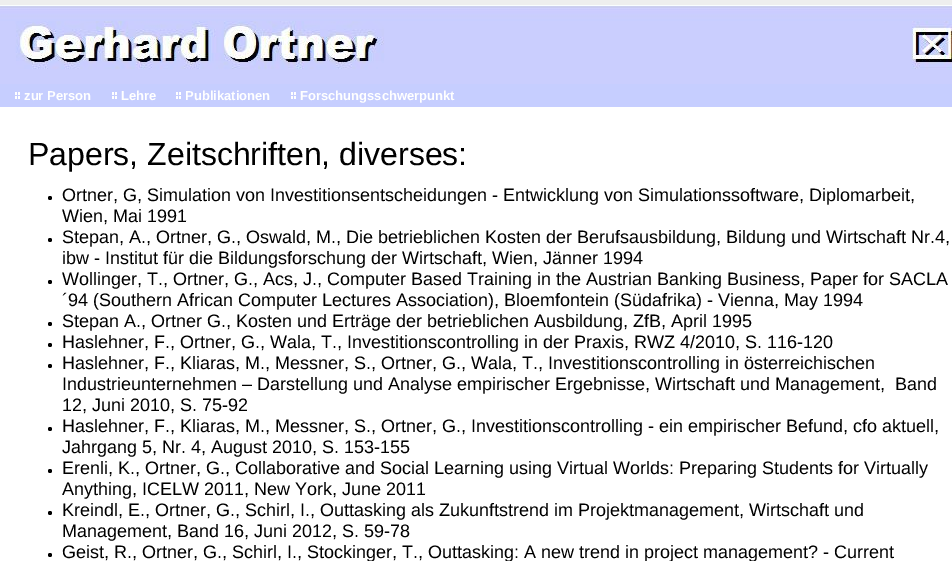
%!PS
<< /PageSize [952 561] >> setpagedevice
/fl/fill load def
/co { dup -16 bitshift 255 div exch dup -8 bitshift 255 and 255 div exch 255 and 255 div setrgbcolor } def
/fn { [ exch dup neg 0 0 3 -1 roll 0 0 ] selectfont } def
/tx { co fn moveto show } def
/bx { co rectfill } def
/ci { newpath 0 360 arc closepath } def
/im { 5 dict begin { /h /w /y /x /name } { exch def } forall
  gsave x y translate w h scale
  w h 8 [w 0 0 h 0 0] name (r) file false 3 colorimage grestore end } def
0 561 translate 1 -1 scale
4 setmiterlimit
0 0 952 561 16#EEEEEE bx
(media/1.raw) 0 5 952 79 im
0 84 952 23 16#C6CEFF bx
(media/2.raw) 15 92 5 7 im
(media/2.raw) 112 92 5 7 im
(media/2.raw) 176 92 5 7 im
(media/2.raw) 291 92 5 7 im
0 107 952 454 16#FFFFFF bx
16#000000 co
50 198 2 ci fl
50 240 2 ci fl
50 282 2 ci fl
50 324 2 ci fl
50 345 2 ci fl
50 366 2 ci fl
50 429 2 ci fl
50 471 2 ci fl
50 513 2 ci fl
50 555 2 ci fl
(zur Person) 24 100 /LiberationSans-Bold 13 16#FFFFFF tx
(Lehre) 121 100 /LiberationSans-Bold 13 16#FFFFFF tx
(Publikationen) 185 100 /LiberationSans-Bold 13 16#FFFFFF tx
(Forschungsschwerpunkt) 300 100 /LiberationSans-Bold 13 16#FFFFFF tx
(Papers, Zeitschriften, diverses:) 28 165 /LiberationSans-Regular 32 16#000000 tx
(Ortner, G, Simulation von Investitionsentscheidungen - Entwicklung von Simulationssoftware, Diplomarbeit,) 62 201 /LiberationSans-Regular 18 16#000000 tx
(Wien, Mai 1991) 62 222 /LiberationSans-Regular 18 16#000000 tx
(Stepan, A., Ortner, G., Oswald, M., Die betrieblichen Kosten der Berufsausbildung, Bildung und Wirtschaft Nr.4,) 62 243 /LiberationSans-Regular 18 16#000000 tx
(ibw - Institut für die Bildungsforschung der Wirtschaft, Wien, Jänner 1994) 62 264 /LiberationSans-Regular 18 16#000000 tx
(Wollinger, T., Ortner, G., Acs, J., Computer Based Training in the Austrian Banking Business, Paper for SACLA) 62 285 /LiberationSans-Regular 18 16#000000 tx
(´94 \(Southern African Computer Lectures Association\), Bloemfontein \(Südafrika\) - Vienna, May 1994) 62 306 /LiberationSans-Regular 18 16#000000 tx
(Stepan A., Ortner G., Kosten und Erträge der betrieblichen Ausbildung, ZfB, April 1995) 62 327 /LiberationSans-Regular 18 16#000000 tx
(Haslehner, F., Ortner, G., Wala, T., Investitionscontrolling in der Praxis, RWZ 4/2010, S. 116-120) 62 348 /LiberationSans-Regular 18 16#000000 tx
(Haslehner, F., Kliaras, M., Messner, S., Ortner, G., Wala, T., Investitionscontrolling in österreichischen) 62 369 /LiberationSans-Regular 18 16#000000 tx
(Industrieunternehmen – Darstellung und Analyse empirischer Ergebnisse, Wirtschaft und Management,  Band) 62 390 /LiberationSans-Regular 18 16#000000 tx
(12, Juni 2010, S. 75-92) 62 411 /LiberationSans-Regular 18 16#000000 tx
(Haslehner, F., Kliaras, M., Messner, S., Ortner, G., Investitionscontrolling - ein empirischer Befund, cfo aktuell,) 62 432 /LiberationSans-Regular 18 16#000000 tx
(Jahrgang 5, Nr. 4, August 2010, S. 153-155) 62 453 /LiberationSans-Regular 18 16#000000 tx
(Erenli, K., Ortner, G., Collaborative and Social Learning using Virtual Worlds: Preparing Students for Virtually) 62 474 /LiberationSans-Regular 18 16#000000 tx
(Anything, ICELW 2011, New York, June 2011) 62 495 /LiberationSans-Regular 18 16#000000 tx
(Kreindl, E., Ortner, G., Schirl, I., Outtasking als Zukunftstrend im Projektmanagement, Wirtschaft und) 62 516 /LiberationSans-Regular 18 16#000000 tx
(Management, Band 16, Juni 2012, S. 59-78) 62 537 /LiberationSans-Regular 18 16#000000 tx
(Geist, R., Ortner, G., Schirl, I., Stockinger, T., Outtasking: A new trend in project management? - Current) 62 558 /LiberationSans-Regular 18 16#000000 tx
showpage
